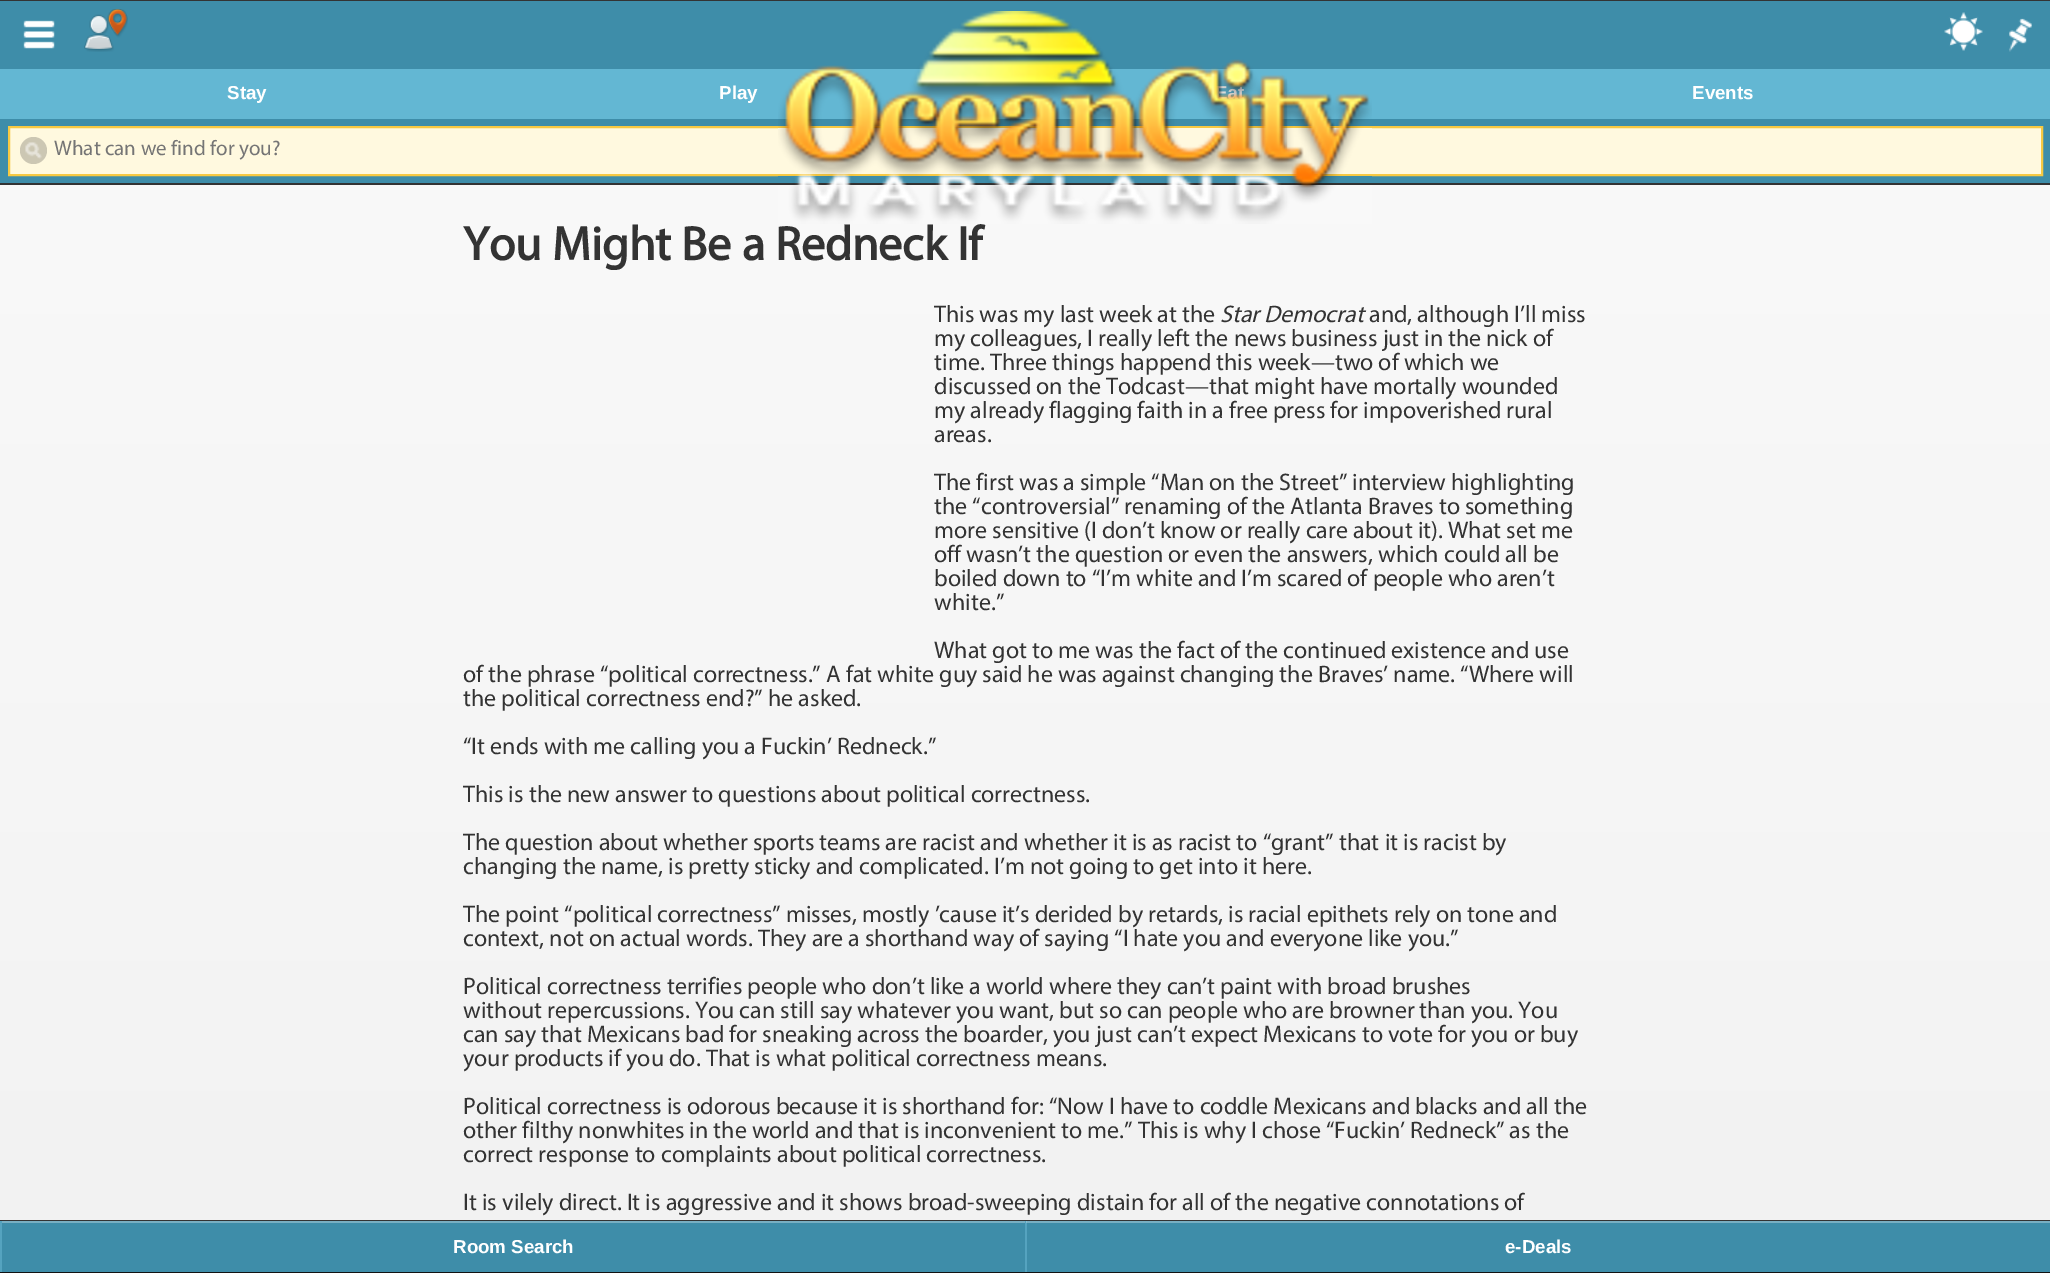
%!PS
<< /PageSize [2050 1273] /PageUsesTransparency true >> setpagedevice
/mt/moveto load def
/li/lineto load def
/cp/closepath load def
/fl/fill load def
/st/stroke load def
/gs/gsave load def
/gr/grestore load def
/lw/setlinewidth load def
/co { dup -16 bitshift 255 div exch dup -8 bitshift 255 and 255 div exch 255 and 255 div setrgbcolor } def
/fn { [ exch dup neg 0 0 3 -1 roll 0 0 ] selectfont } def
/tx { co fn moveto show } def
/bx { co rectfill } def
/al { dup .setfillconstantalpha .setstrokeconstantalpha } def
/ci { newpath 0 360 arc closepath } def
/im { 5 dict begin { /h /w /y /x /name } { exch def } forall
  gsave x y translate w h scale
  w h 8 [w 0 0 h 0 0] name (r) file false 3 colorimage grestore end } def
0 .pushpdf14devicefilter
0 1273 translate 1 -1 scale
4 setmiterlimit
0 0 2050 1273 16#FFFFFF bx
0 1 2050 182 16#3E8DA9 bx
0 0 2050 1 16#333333 bx
0 183 2050 2 16#333333 bx
(media/1.raw) 23 20 32 29 im
(media/2.raw) 84 9 44 43 im
(media/3.raw) 1944 12 39 39 im
(media/4.raw) 2009 18 23 34 im
0 69 2050 50 16#63B7D3 bx
16#FFF9DF co
9 127 mt 2042 127 li 2042 175 li 9 175 li cp gs fl gr
16#F7C942 co
2 lw
st
16#CCC7B3 co
33.5 150.5 13.5 ci fl
(media/6.raw) 25 142 17 17 im
gs 0 185 mt 2050 185 li 2050 1220 li 0 1220 li cp clip newpath
<< /ShadingType 2 /ColorSpace /DeviceRGB /Coords [1025 184 1025 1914] /Extend [true true] /Function << /FunctionType 2 /Domain [0 1] /C0 [.976 .976 .976] /C1 [.933 .933 .933] /N 1 >> >> shfill gr
gs 0 1272 mt 2050 1272 li 2050 1273 li 0 1273 li cp clip newpath
<< /ShadingType 2 /ColorSpace /DeviceRGB /Coords [1025 1221 1025 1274] /Extend [true true] /Function << /FunctionType 2 /Domain [0 1] /C0 [.235 .235 .235] /C1 [.067 .067 .067] /N 1 >> >> shfill gr
0 1220 2050 1 16#333333 bx
2 1223 1023 49 16#3E8DA9 bx
0 1221 2 51 16#55A3BF bx
2 1221 1024 2 16#78AFC3 bx
1027 1221 1023 51 16#3E8DA9 bx
1025 1221 2 51 16#55A3BF bx
0.3 al
1026 1221 1024 2 16#FFFFFF bx
1 al
(Stay) 227 99 /LiberationSans-Bold 18.75 16#FFFFFF tx
(Play) 719 99 /LiberationSans-Bold 18.75 16#FFFFFF tx
(Eat) 1215 99 /LiberationSans-Bold 18.75 16#FFFFFF tx
(media/5.raw) 778 11 594 213 im
(Events) 1692 99 /LiberationSans-Bold 18.75 16#FFFFFF tx
(What can we find for you?) 54 155 /Myriad-Regular 21 16#757575 tx
(You Might Be a Redneck If) 463 260 /Myriad-Bold 48 16#333333 tx
(This was my last week at the) 934 322 /Myriad-Regular 24 16#333333 tx
(Star Democrat) 1220 322 /Myriad-Italic 24 16#333333 tx
(and, although I’ll miss) 1369 322 /Myriad-Regular 24 16#333333 tx
(my colleagues, I really left the news business just in the nick of) 934 346 /Myriad-Regular 24 16#333333 tx
(time. Three things happend this week—two of which we) 934 370 /Myriad-Regular 24 16#333333 tx
(discussed on the Todcast—that might have mortally wounded) 934 394 /Myriad-Regular 24 16#333333 tx
(my already flagging faith in a free press for impoverished rural) 934 418 /Myriad-Regular 24 16#333333 tx
(areas.) 934 442 /Myriad-Regular 24 16#333333 tx
(The first was a simple “Man on the Street” interview highlighting) 934 490 /Myriad-Regular 24 16#333333 tx
(the “controversial” renaming of the Atlanta Braves to something) 934 514 /Myriad-Regular 24 16#333333 tx
(more sensitive \(I don’t know or really care about it\). What set me) 934 538 /Myriad-Regular 24 16#333333 tx
(off wasn’t the question or even the answers, which could all be) 934 562 /Myriad-Regular 24 16#333333 tx
(boiled down to “I’m white and I’m scared of people who aren’t) 934 586 /Myriad-Regular 24 16#333333 tx
(white.”) 934 610 /Myriad-Regular 24 16#333333 tx
(What got to me was the fact of the continued existence and use) 934 658 /Myriad-Regular 24 16#333333 tx
(of the phrase “political correctness.” A fat white guy said he was against changing the Braves’ name. “Where will) 463 682 /Myriad-Regular 24 16#333333 tx
(the political correctness end?” he asked.) 463 706 /Myriad-Regular 24 16#333333 tx
(“It ends with me calling you a Fuckin’ Redneck.”) 463 754 /Myriad-Regular 24 16#333333 tx
(This is the new answer to questions about political correctness.) 463 802 /Myriad-Regular 24 16#333333 tx
(The question about whether sports teams are racist and whether it is as racist to “grant” that it is racist by) 463 850 /Myriad-Regular 24 16#333333 tx
(changing the name, is pretty sticky and complicated. I’m not going to get into it here.) 463 874 /Myriad-Regular 24 16#333333 tx
(The point “political correctness” misses, mostly ’cause it’s derided by retards, is racial epithets rely on tone and) 463 922 /Myriad-Regular 24 16#333333 tx
(context, not on actual words. They are a shorthand way of saying “I hate you and everyone like you.”) 463 946 /Myriad-Regular 24 16#333333 tx
(Political correctness terrifies people who don’t like a world where they can’t paint with broad brushes) 463 994 /Myriad-Regular 24 16#333333 tx
(without repercussions. You can still say whatever you want, but so can people who are browner than you. You) 463 1018 /Myriad-Regular 24 16#333333 tx
(can say that Mexicans bad for sneaking across the boarder, you just can’t expect Mexicans to vote for you or buy) 463 1042 /Myriad-Regular 24 16#333333 tx
(your products if you do. That is what political correctness means.) 463 1066 /Myriad-Regular 24 16#333333 tx
(Political correctness is odorous because it is shorthand for: “Now I have to coddle Mexicans and blacks and all the) 463 1114 /Myriad-Regular 24 16#333333 tx
(other filthy nonwhites in the world and that is inconvenient to me.” This is why I chose “Fuckin’ Redneck” as the) 463 1138 /Myriad-Regular 24 16#333333 tx
(correct response to complaints about political correctness.) 463 1162 /Myriad-Regular 24 16#333333 tx
(It is vilely direct. It is aggressive and it shows broad-sweeping distain for all of the negative connotations of) 463 1210 /Myriad-Regular 24 16#333333 tx
(Room Search) 453 1253 /LiberationSans-Bold 18.75 16#FFFFFF tx
(e-Deals) 1505 1253 /LiberationSans-Bold 18.75 16#FFFFFF tx
.poppdf14devicefilter showpage
